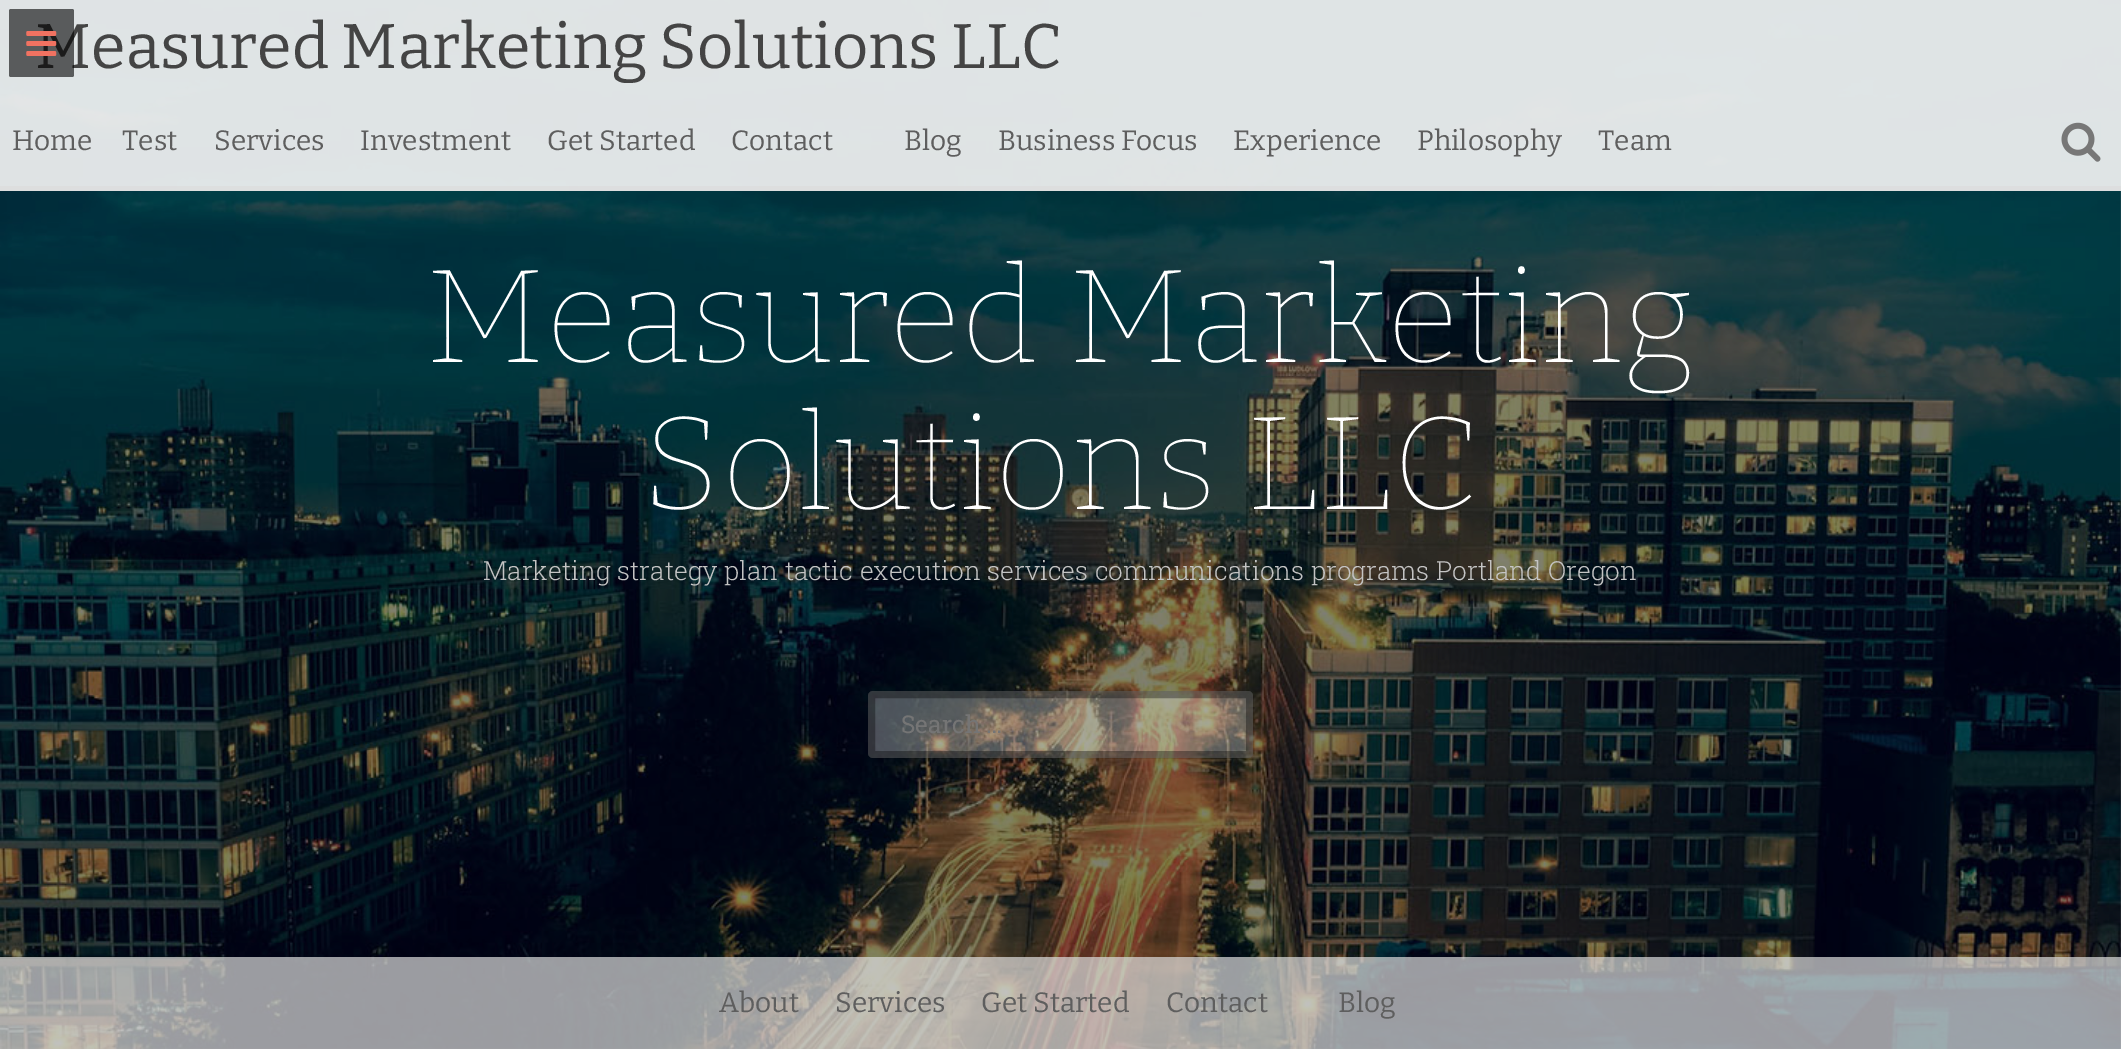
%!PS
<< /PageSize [2121 1049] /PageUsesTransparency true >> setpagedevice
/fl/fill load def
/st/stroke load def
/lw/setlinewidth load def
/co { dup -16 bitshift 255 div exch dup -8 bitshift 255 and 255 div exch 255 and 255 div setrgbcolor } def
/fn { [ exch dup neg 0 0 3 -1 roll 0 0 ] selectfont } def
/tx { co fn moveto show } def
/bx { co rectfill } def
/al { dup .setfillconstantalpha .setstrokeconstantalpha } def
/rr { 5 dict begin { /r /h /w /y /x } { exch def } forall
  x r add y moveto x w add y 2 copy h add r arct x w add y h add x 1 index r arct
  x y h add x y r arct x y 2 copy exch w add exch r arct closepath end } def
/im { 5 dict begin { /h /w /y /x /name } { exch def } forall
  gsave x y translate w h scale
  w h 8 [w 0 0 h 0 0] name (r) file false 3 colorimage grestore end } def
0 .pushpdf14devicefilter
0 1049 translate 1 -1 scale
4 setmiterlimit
0 0 2121 1049 16#FFFFFF bx
(media/3.raw) 0 0 2121 1049 im
0.9 al
0 0 2121 191 16#F7F7F7 bx
0.8 al
0 186 2121 5 16#DDDDDD bx
1 al
(media/2.raw) 2061 122 40 40 im
0.3 al
16#FFFFFF co
868 691 385 67 5 rr fl
0.35 al
16#000000 co
7 lw
871.5 694.5 378 60 1.5 rr st
0.7 al
0 957 2121 92 16#DDDDDD bx
1 al
(Measured Marketing Solutions LLC) 35 68 /Bitter-Regular 63 16#444444 tx
0.6 al
16#000000 co
9 9 65 68 2 rr fl
1 al
(media/1.raw) 26 31 31 25 im
(Home) 12 150 /Bitter-Regular 28 16#5E5E5E tx
(Test) 122 150 /Bitter-Regular 28 16#5E5E5E tx
(Services) 214 150 /Bitter-Regular 28 16#5E5E5E tx
(Investment) 360 150 /Bitter-Regular 28 16#5E5E5E tx
(Get Started) 547 150 /Bitter-Regular 28 16#5E5E5E tx
(Contact) 731 150 /Bitter-Regular 28 16#5E5E5E tx
(Blog) 904 150 /Bitter-Regular 28 16#5E5E5E tx
(Business Focus) 998 150 /Bitter-Regular 28 16#5E5E5E tx
(Experience) 1233 150 /Bitter-Regular 28 16#5E5E5E tx
(Philosophy) 1417 150 /Bitter-Regular 28 16#5E5E5E tx
(Team) 1598 150 /Bitter-Regular 28 16#5E5E5E tx
(Measured Marketing) 425 362 /Bitter-Thin 133 16#FFFFFF tx
(Solutions LLC) 642 509 /Bitter-Thin 133 16#FFFFFF tx
(Marketing strategy plan tactic execution services communications programs Portland Oregon) 483 580 /RobotoSlab-Light 26.25 16#C4C4C4 tx
(Search …) 901 733 /RobotoSlab-Regular 24.5 16#757575 tx
(About) 719 1012 /Bitter-Regular 28 16#5E5E5E tx
(Services) 835 1012 /Bitter-Regular 28 16#5E5E5E tx
(Get Started) 981 1012 /Bitter-Regular 28 16#5E5E5E tx
(Contact) 1166 1012 /Bitter-Regular 28 16#5E5E5E tx
(Blog) 1338 1012 /Bitter-Regular 28 16#5E5E5E tx
.poppdf14devicefilter showpage
